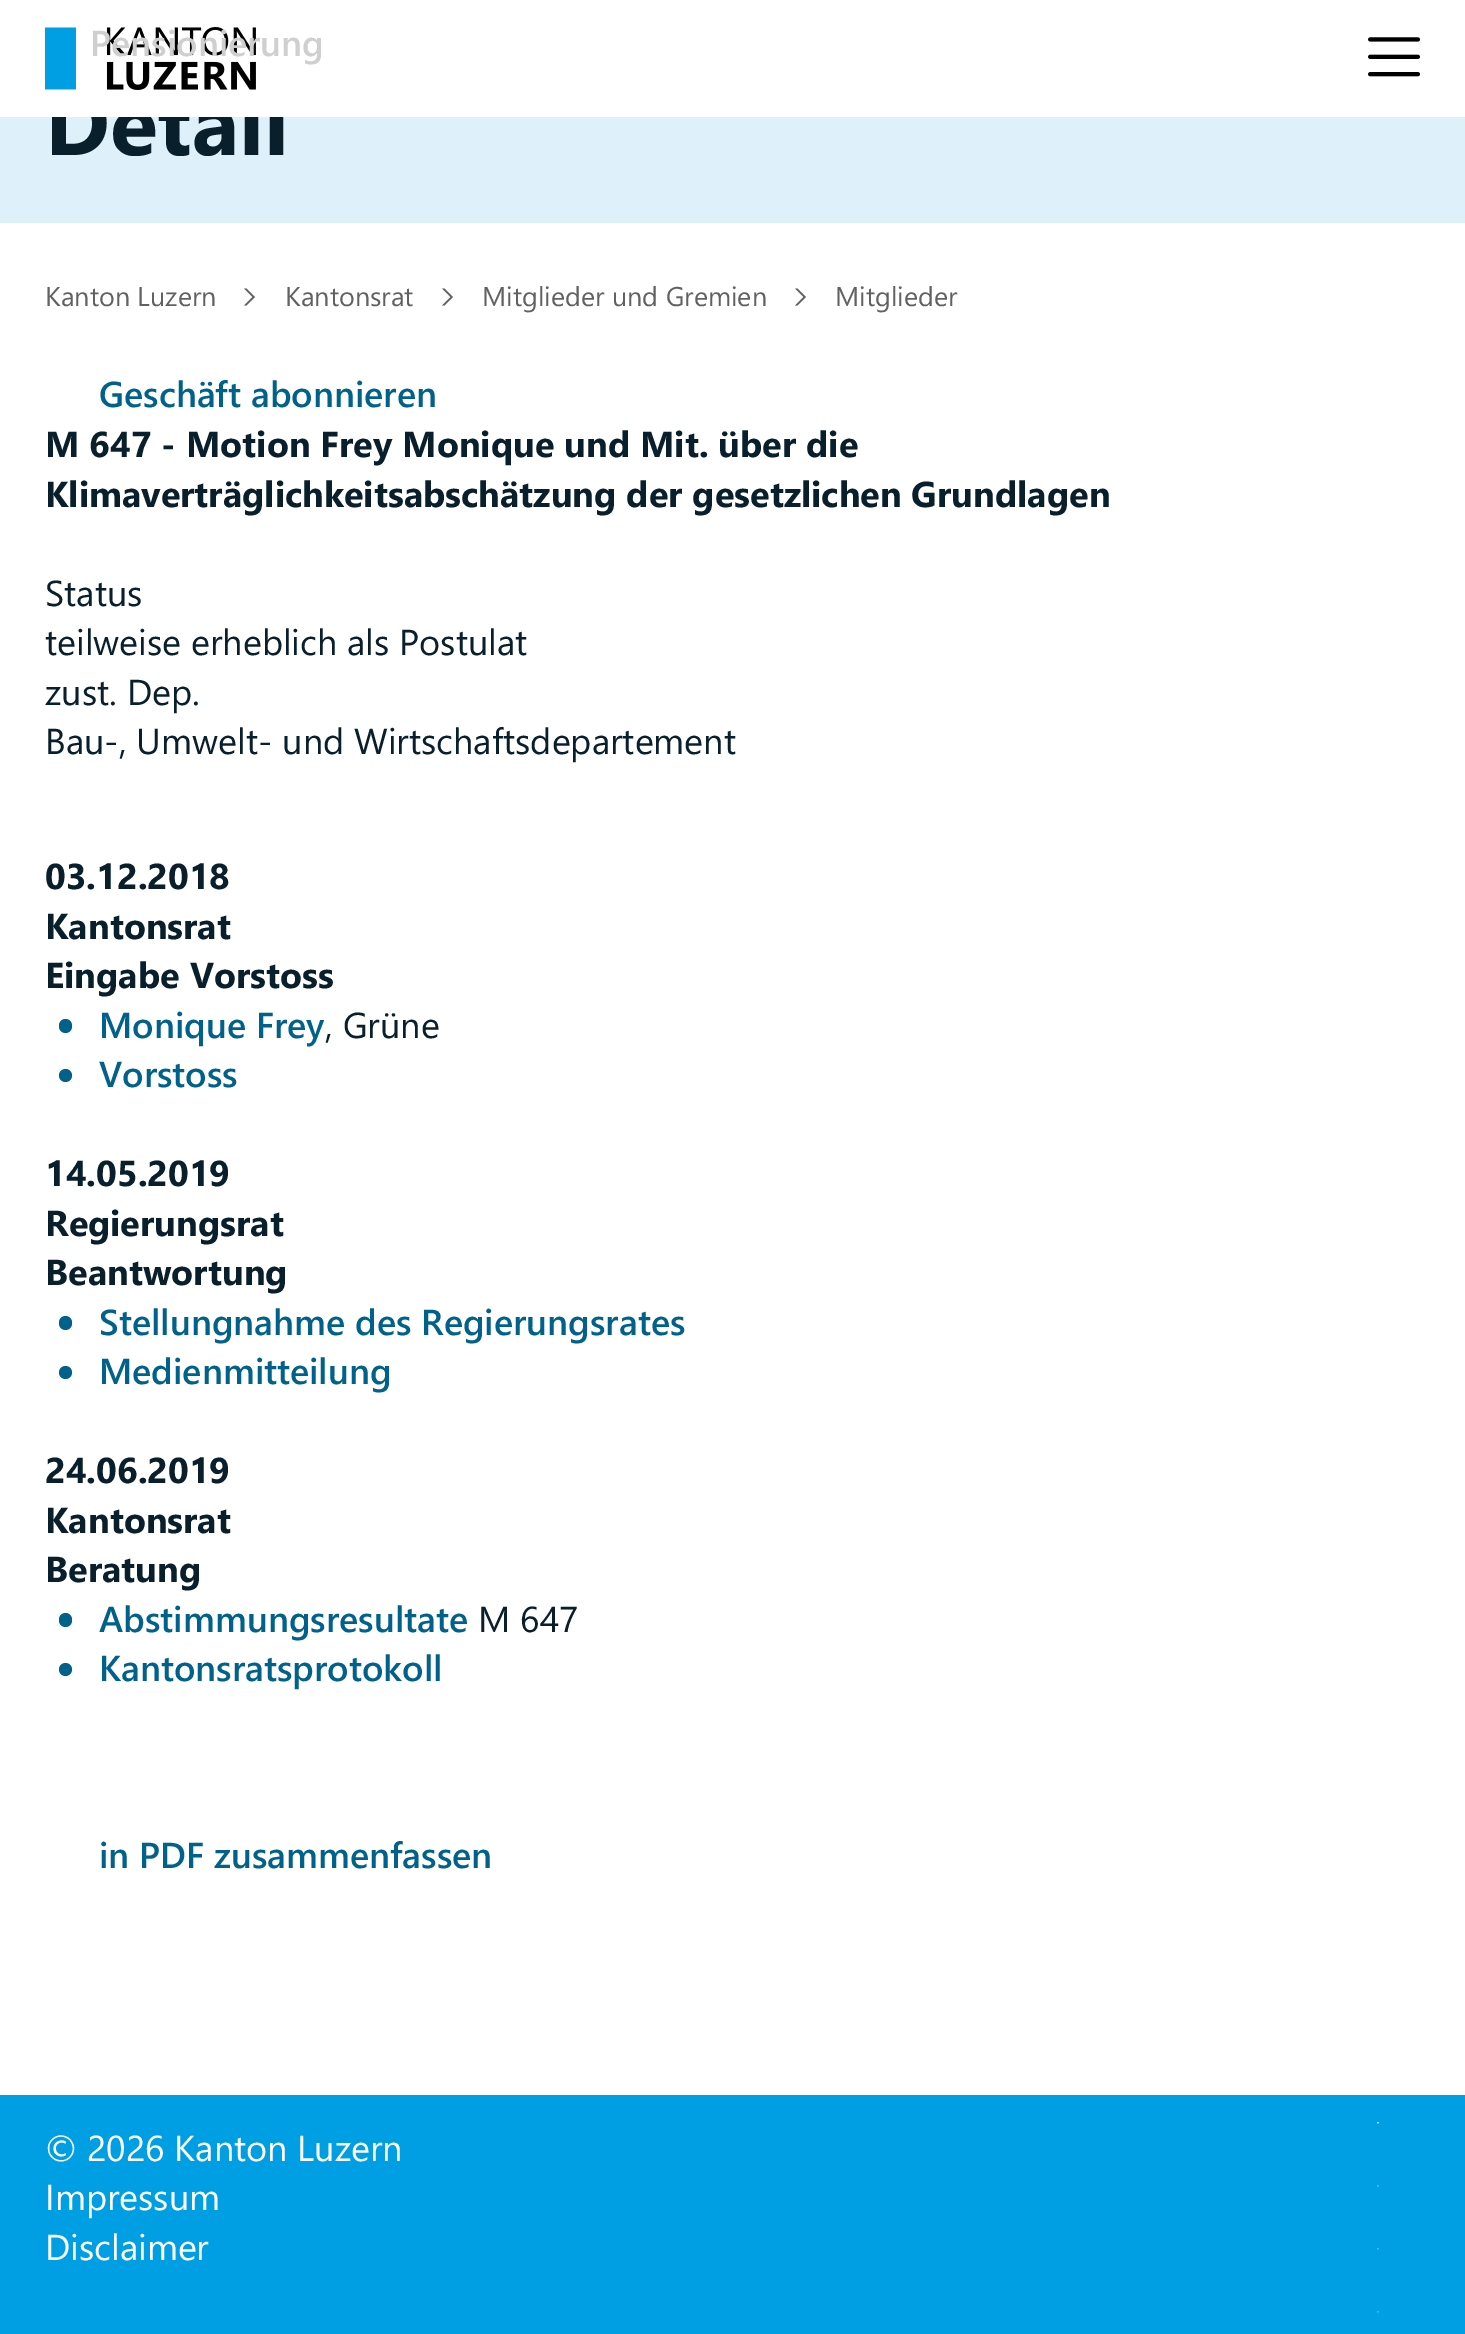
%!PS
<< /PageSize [1465 2334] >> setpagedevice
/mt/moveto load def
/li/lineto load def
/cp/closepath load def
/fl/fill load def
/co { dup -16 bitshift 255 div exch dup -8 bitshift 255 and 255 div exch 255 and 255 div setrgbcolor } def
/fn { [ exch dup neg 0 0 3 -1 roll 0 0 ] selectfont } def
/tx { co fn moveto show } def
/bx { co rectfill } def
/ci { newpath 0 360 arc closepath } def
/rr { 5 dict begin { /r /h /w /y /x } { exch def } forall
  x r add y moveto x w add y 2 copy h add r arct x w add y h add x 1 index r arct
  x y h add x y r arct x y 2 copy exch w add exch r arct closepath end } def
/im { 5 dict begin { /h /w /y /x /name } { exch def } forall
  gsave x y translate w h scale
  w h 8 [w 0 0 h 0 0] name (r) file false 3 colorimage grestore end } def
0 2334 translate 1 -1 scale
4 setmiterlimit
0 0 1465 2334 16#FFFFFF bx
(media/2.raw) 1368 37 53 40 im
0 117 1465 106 16#DEF0FA bx
16#616161 co
252.5 297 mt 244 305.5 li 246.5 305.5 li 255 297 li 246.5 288.5 li 244 288.5 li cp fl
450.5 297 mt 442 305.5 li 444.5 305.5 li 453 297 li 444.5 288.5 li 442 288.5 li cp fl
803.5 297 mt 795 305.5 li 797.5 305.5 li 806 297 li 797.5 288.5 li 795 288.5 li cp fl
16#00618A co
59 1019 13 14 6.5 rr fl
65.5 1075.5 6.5 ci fl
59 1316 13 14 6.5 rr fl
65.5 1372.5 6.5 ci fl
59 1613 13 14 6.5 rr fl
65.5 1669.5 6.5 ci fl
0 2095 1465 239 16#009FE3 bx
(media/3.raw) 1377 2122 2 2 im
(media/4.raw) 1377 2185 2 2 im
(media/5.raw) 1377 2248 2 2 im
(media/6.raw) 1377 2311 2 2 im
(Detail) 45 155 /SegoeUI-Bold 88 16#09202C tx
52 89 232 28 16#FFFFFF bx
(media/1.raw) 45 27 211 63 im
(Pensionierung) 90 56 /SegoeUI-SemiBold 36 16#CFCFCF tx
(Kanton Luzern) 45 306 /SegoeUI-Regular 27 16#616161 tx
(Kantonsrat) 285 306 /SegoeUI-Regular 27 16#616161 tx
(Mitglieder und Gremien) 482 306 /SegoeUI-Regular 27 16#616161 tx
(Mitglieder) 835 306 /SegoeUI-Regular 27 16#616161 tx
(Geschäft abonnieren) 99 407 /SegoeUI-SemiBold 36 16#00618A tx
(M 647 - Motion Frey Monique und Mit. über die) 45 457 /SegoeUI-Bold 36 16#09202C tx
(Klimaverträglichkeitsabschätzung der gesetzlichen Grundlagen) 45 507 /SegoeUI-Bold 36 16#09202C tx
(Status) 45 606 /SegoeUI-Regular 36 16#09202C tx
(teilweise erheblich als Postulat) 45 655 /SegoeUI-Regular 36 16#09202C tx
(zust. Dep.) 45 705 /SegoeUI-Regular 36 16#09202C tx
(Bau-, Umwelt- und Wirtschaftsdepartement) 45 754 /SegoeUI-Regular 36 16#09202C tx
(03.12.2018) 45 889 /SegoeUI-Bold 36 16#09202C tx
(Kantonsrat) 45 939 /SegoeUI-Bold 36 16#09202C tx
(Eingabe Vorstoss) 45 988 /SegoeUI-Bold 36 16#09202C tx
(Monique Frey) 99 1038 /SegoeUI-SemiBold 36 16#00618A tx
(, Grüne) 325 1038 /SegoeUI-Regular 36 16#09202C tx
(Vorstoss) 99 1087 /SegoeUI-SemiBold 36 16#00618A tx
(14.05.2019) 45 1186 /SegoeUI-Bold 36 16#09202C tx
(Regierungsrat) 45 1236 /SegoeUI-Bold 36 16#09202C tx
(Beantwortung) 45 1285 /SegoeUI-Bold 36 16#09202C tx
(Stellungnahme des Regierungsrates) 99 1335 /SegoeUI-SemiBold 36 16#00618A tx
(Medienmitteilung) 99 1384 /SegoeUI-SemiBold 36 16#00618A tx
(24.06.2019) 45 1483 /SegoeUI-Bold 36 16#09202C tx
(Kantonsrat) 45 1533 /SegoeUI-Bold 36 16#09202C tx
(Beratung) 45 1582 /SegoeUI-Bold 36 16#09202C tx
(Abstimmungsresultate) 99 1632 /SegoeUI-SemiBold 36 16#00618A tx
(M 647) 478 1632 /SegoeUI-Regular 36 16#09202C tx
(Kantonsratsprotokoll) 99 1681 /SegoeUI-SemiBold 36 16#00618A tx
(in PDF zusammenfassen) 99 1868 /SegoeUI-SemiBold 36 16#00618A tx
(© 2026 Kanton Luzern) 45 2161 /SegoeUI-Regular 36 16#FFFFFF tx
(Impressum) 45 2210 /SegoeUI-Regular 36 16#FFFFFF tx
(Disclaimer) 45 2260 /SegoeUI-Regular 36 16#FFFFFF tx
showpage
